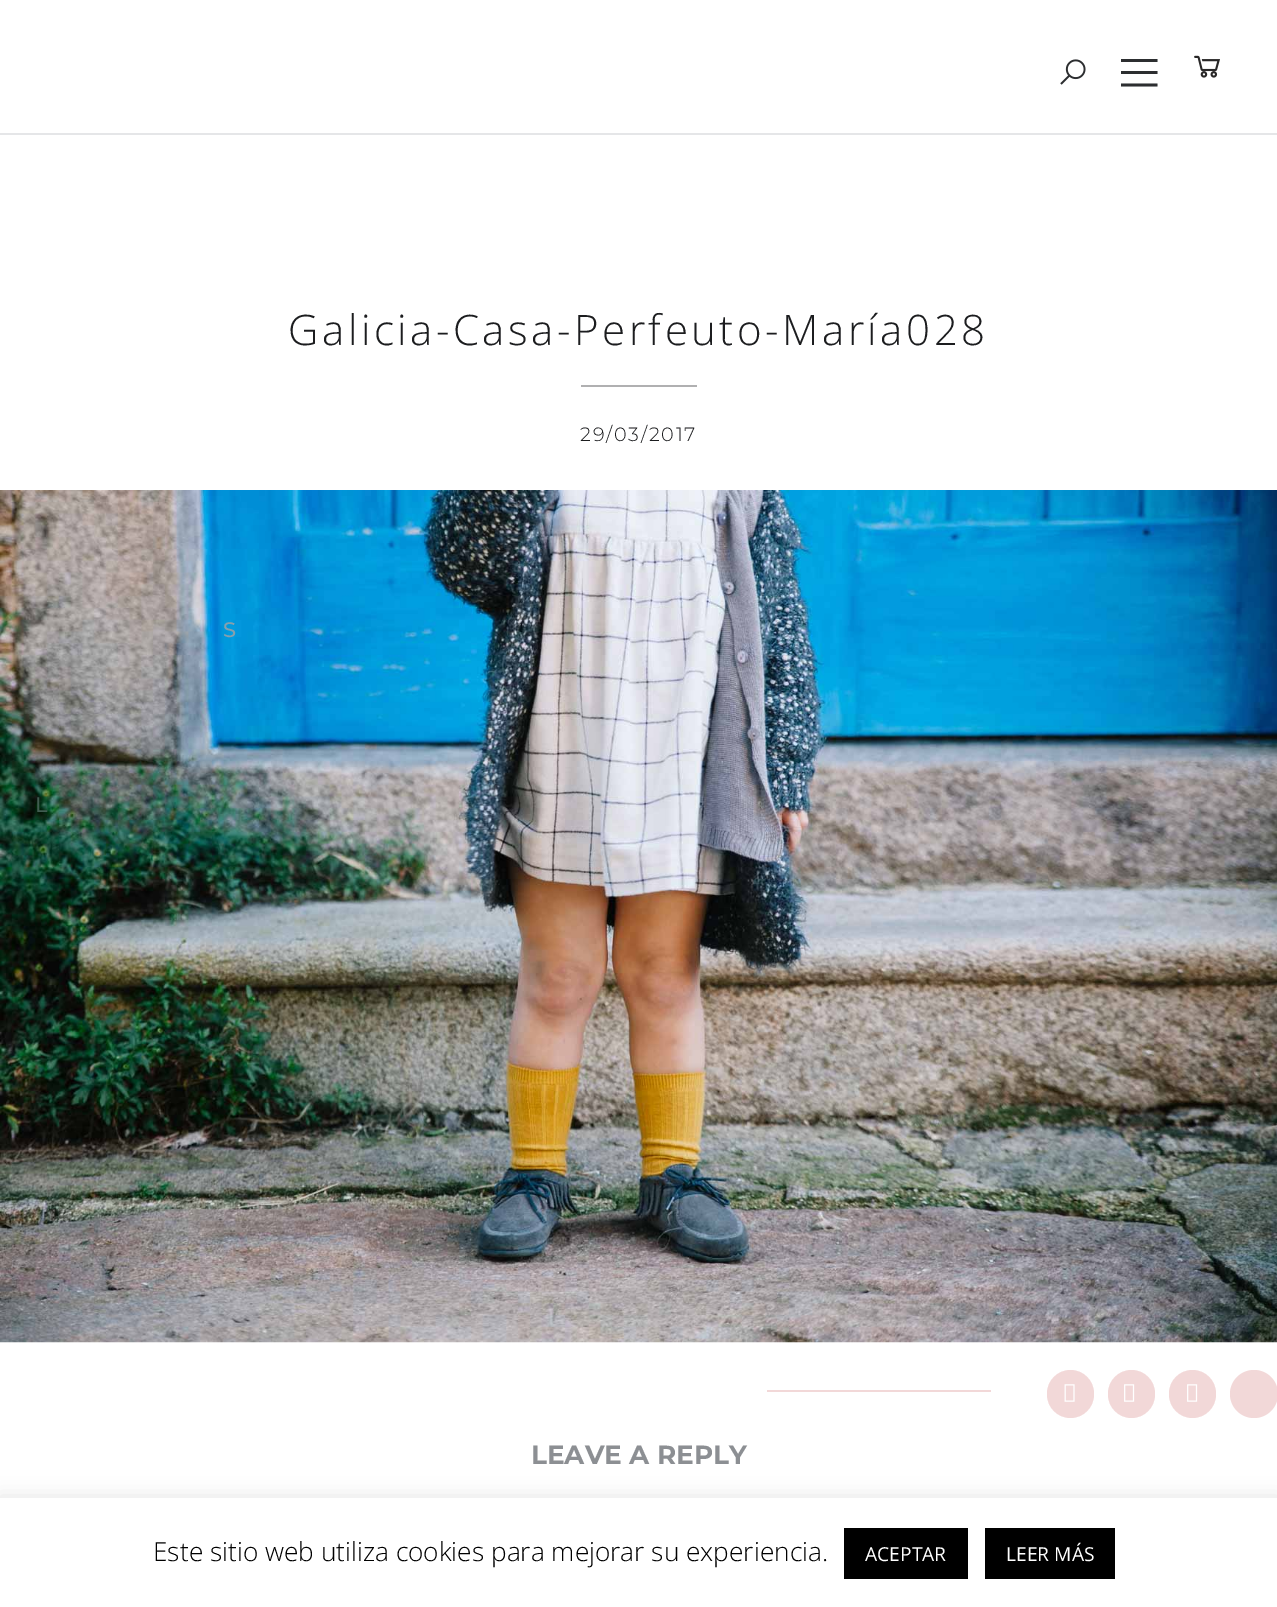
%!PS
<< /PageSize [1277 1607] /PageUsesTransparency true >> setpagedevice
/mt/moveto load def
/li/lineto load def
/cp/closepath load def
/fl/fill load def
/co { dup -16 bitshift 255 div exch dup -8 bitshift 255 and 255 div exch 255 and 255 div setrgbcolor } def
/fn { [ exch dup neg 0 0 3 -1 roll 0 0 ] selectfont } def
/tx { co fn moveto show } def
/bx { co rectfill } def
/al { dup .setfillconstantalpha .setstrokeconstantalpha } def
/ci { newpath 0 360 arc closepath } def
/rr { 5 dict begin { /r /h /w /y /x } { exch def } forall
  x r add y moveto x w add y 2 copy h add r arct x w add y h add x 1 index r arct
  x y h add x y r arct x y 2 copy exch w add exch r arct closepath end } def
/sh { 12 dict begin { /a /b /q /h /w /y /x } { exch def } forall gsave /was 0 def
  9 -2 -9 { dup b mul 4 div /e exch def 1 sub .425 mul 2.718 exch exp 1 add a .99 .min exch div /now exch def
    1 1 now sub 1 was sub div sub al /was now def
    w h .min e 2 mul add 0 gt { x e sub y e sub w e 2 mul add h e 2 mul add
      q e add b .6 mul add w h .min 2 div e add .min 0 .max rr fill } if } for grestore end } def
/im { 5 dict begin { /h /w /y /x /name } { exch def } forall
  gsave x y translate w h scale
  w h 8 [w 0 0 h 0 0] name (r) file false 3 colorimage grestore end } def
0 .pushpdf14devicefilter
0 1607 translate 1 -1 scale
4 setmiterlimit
0 0 1277 1607 16#FFFFFF bx
0 133 1277 2 16#E5E6E8 bx
(media/1.raw) 1060 59 26 26 im
16#2C2E30 co
1121 59 mt 1157.5 59 li 1157.5 62 li 1121 62 li cp 1121 71 mt 1157.5 71 li 1157.5 74 li 1121 74 li cp 1121 83.5 mt 1157.5 83.5 li 1157.5 86.5 li 1121 86.5 li cp fl
(media/2.raw) 1194 55 26 23 im
581 385 116 2 16#B0B0B1 bx
(media/3.raw) 0 490 1277 853 im
767 1390 224 2 16#F2D8D8 bx
1047 1370 47 48 23.5 rr fl
(media/4.raw) 1064 1384 11 18 im
1108 1370 47 48 23.5 rr fl
(media/5.raw) 1124 1384 11 18 im
1169 1370 47 48 23.5 rr fl
(media/5.raw) 1187 1384 11 18 im
1254 1394 24 ci fl
16#ACABAB co
0 1496 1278 111 0 9 .3 sh
0 1498 1277 109 16#FFFFFF bx
844 1528 124 51 16#000000 bx
985 1528 130 51 16#000000 bx
/Montserrat-Medium 21 fn
16#889FAC co
223 637 mt 3 0 (S) ashow
16#405C50 co
35 812 mt 3 0 (L) ashow
/OpenSans-Light 42 fn
16#1C1D1F co
288 345 mt 3.5 0 (Galicia-Casa-Perfeuto-María028) ashow
/Montserrat-Light 19.25 fn
580 441 mt 1.75 0 (29/03/2017) ashow
(LEAVE A REPLY) 531 1464 /Montserrat-Bold 26.25 16#8C8F93 tx
(Este sitio web utiliza cookies para mejorar su experiencia.) 153 1561 /OpenSans-Light 26.25 16#000000 tx
(ACEPTAR) 865 1561 /OpenSans-Regular 19.25 16#FFFFFF tx
(LEER MÁS) 1006 1561 /OpenSans-Regular 19.25 16#FFFFFF tx
.poppdf14devicefilter showpage
